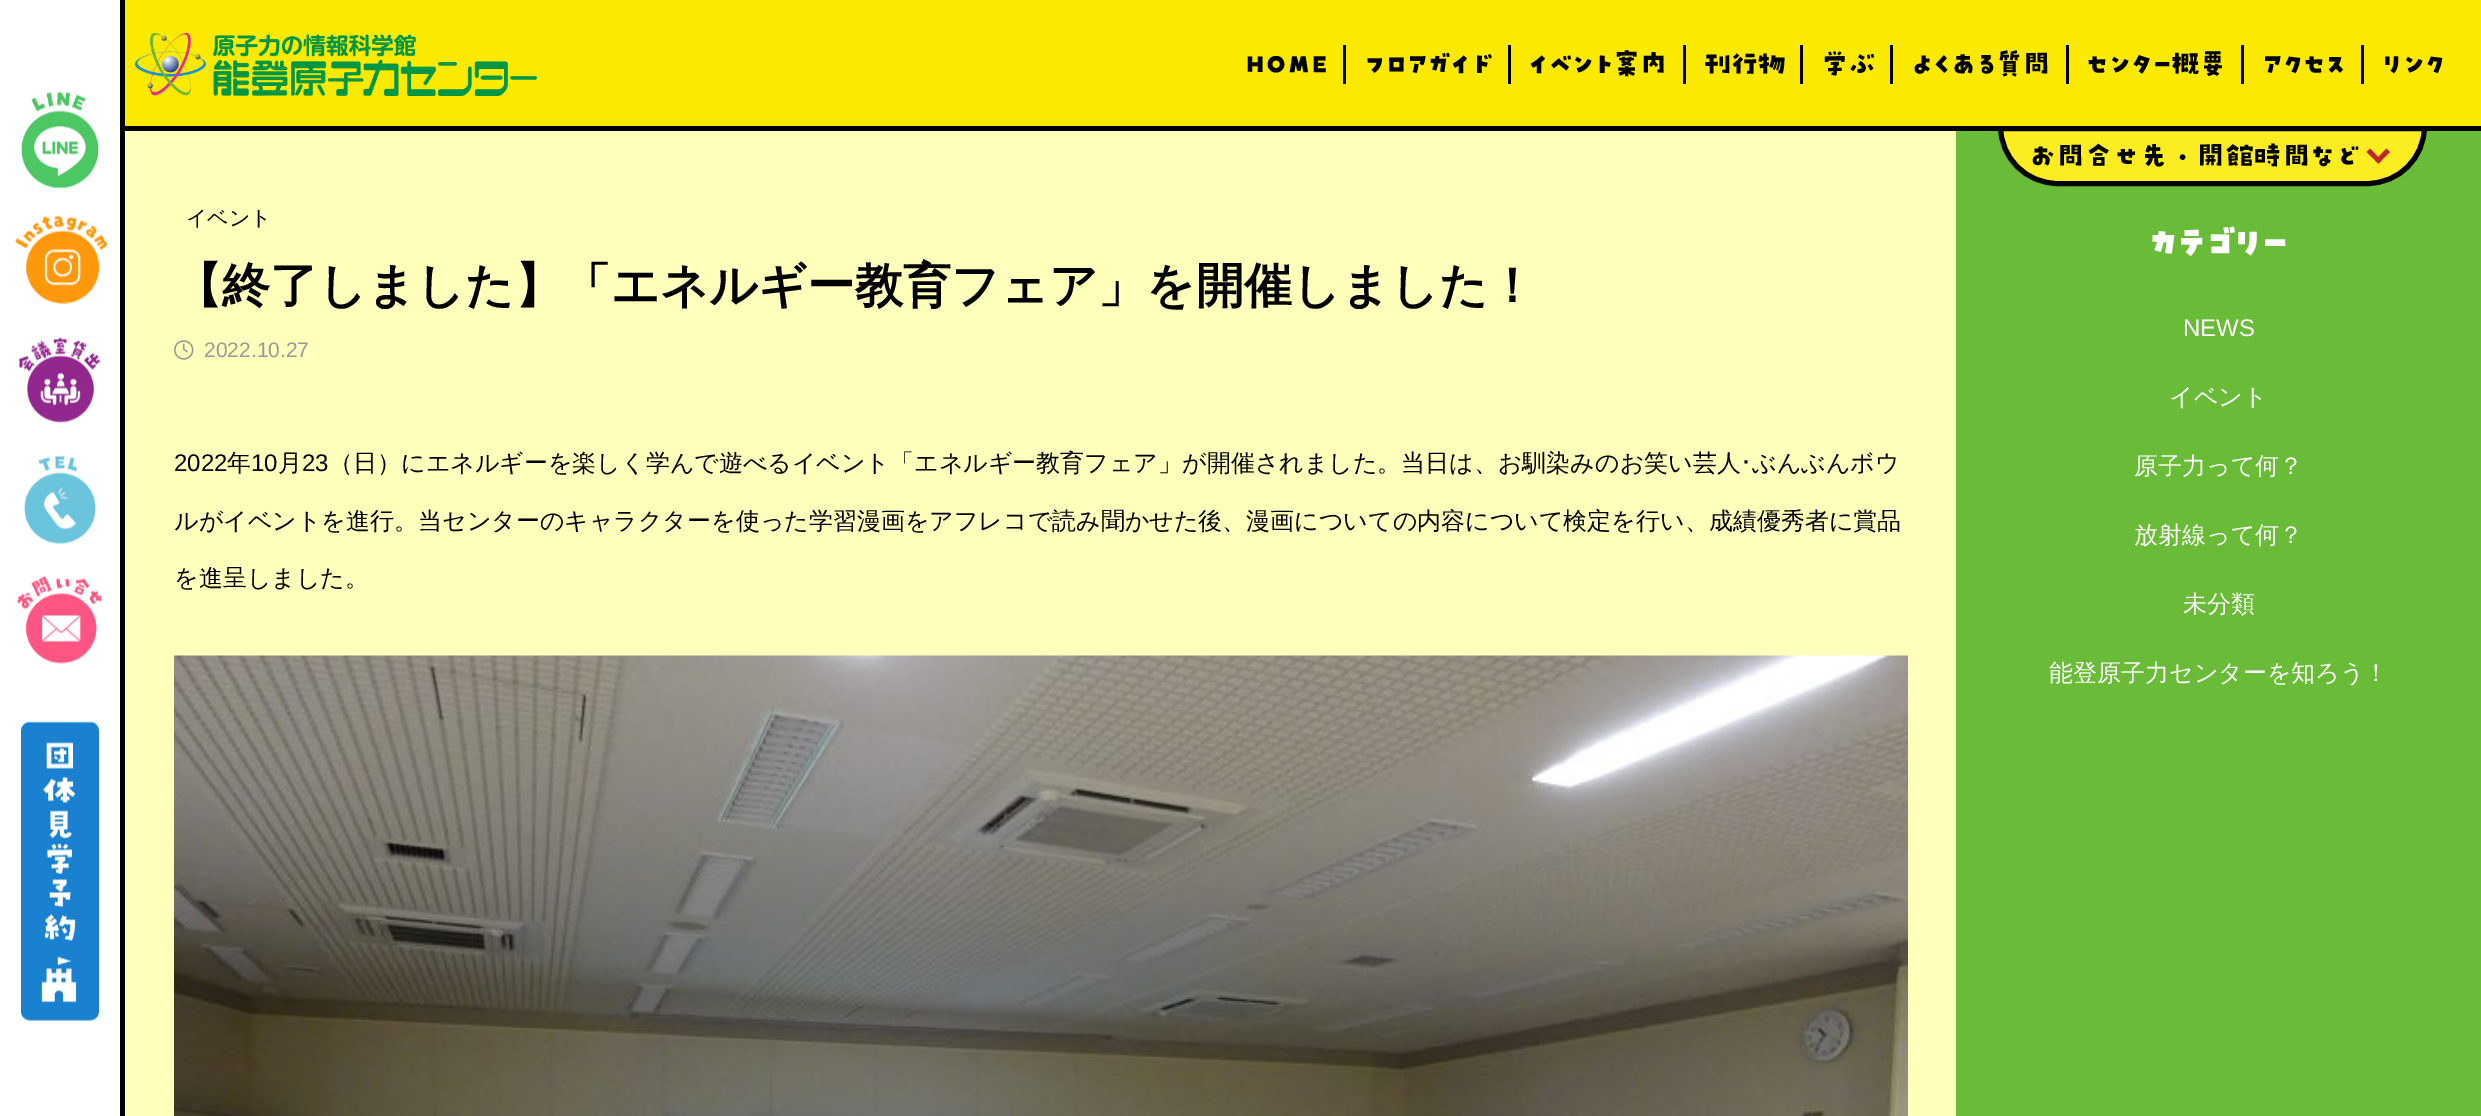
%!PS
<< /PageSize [2481 1116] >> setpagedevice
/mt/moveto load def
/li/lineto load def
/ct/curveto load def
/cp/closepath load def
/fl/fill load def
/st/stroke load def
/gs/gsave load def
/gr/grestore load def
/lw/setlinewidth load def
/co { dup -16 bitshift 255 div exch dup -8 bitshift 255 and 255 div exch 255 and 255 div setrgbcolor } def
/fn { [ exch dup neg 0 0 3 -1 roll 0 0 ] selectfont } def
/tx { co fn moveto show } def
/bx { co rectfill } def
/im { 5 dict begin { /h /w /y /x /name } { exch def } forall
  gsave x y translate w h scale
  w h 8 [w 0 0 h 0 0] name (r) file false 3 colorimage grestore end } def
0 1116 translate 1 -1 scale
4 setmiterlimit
0 0 2481 1116 16#FFFFFF bx
(media/1.raw) 21 92 78 97 im
(media/2.raw) 15 215 93 89 im
(media/3.raw) 18 337 83 86 im
(media/4.raw) 24 455 72 89 im
(media/5.raw) 17 576 85 88 im
(media/6.raw) 21 721 78 300 im
120 0 5 1116 16#000000 bx
125 0 2356 126 16#FBE900 bx
125 126 2356 5 16#000000 bx
(media/7.raw) 135 33 402 63 im
1343 45 3 39 16#000000 bx
1508 45 3 39 16#000000 bx
1683 45 3 39 16#000000 bx
1800 45 3 39 16#000000 bx
1890 45 3 39 16#000000 bx
2066 45 3 39 16#000000 bx
2241 45 3 39 16#000000 bx
2361 45 3 39 16#000000 bx
1956 131 525 985 16#69BB38 bx
16#FBED21 co
2000.5 128.5 mt 2424.5 128.5 li 2424.5 126 li 2424.5 158 2399 183.5 2367 183.5 ct 2058 183.5 li 2026 183.5 2000.5 158 2000.5 126 ct cp gs fl gr
16#000000 co
5 lw
st
16#C0272D co
2390 152 mt 2378.5 163.5 li 2375 160.5 li 2386.5 148.5 li cp fl
2381.5 160.5 mt 2378.5 163.5 li 2366.5 152 li 2370 148.5 li cp fl
126 131 1830 985 16#FFFFBB bx
(media/8.raw) 174 340 20 20 im
(media/9.raw) 174 655 1734 461 im
(HOME) 1245 73 /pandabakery-Regular 27 16#000000 tx
(フロアガイド) 1364 73 /pandabakery-Regular 27 16#000000 tx
(イベント案内) 1528 73 /pandabakery-Regular 27 16#000000 tx
(刊行物) 1704 73 /pandabakery-Regular 27 16#000000 tx
(学ぶ) 1821 73 /pandabakery-Regular 27 16#000000 tx
(よくある質問) 1911 73 /pandabakery-Regular 27 16#000000 tx
(センター概要) 2086 73 /pandabakery-Regular 27 16#000000 tx
(アクセス) 2262 73 /pandabakery-Regular 27 16#000000 tx
(リンク) 2382 73 /pandabakery-Regular 27 16#000000 tx
2029 165 mt 1.5 0 (お問合せ先・開館時間など) ashow
(イベント) 186 225 /WenQuanYiZenHei-Medium 21 16#000000 tx
(【終了しました】「エネルギー教育フェア」を開催しました！) 174 302 /WenQuanYiZenHei-Bold 48 16#000000 tx
(2022.10.27) 204 357 /LiberationSans-Regular 21 16#999999 tx
(2022) 174 471 /LiberationSans-Regular 24 16#000000 tx
(年) 227 471 /WenQuanYiZenHei-Medium 24 16#000000 tx
(10) 251 471 /LiberationSans-Regular 24 16#000000 tx
(月) 278 471 /WenQuanYiZenHei-Medium 24 16#000000 tx
(23) 302 471 /LiberationSans-Regular 24 16#000000 tx
(（日）にエネルギーを楽しく学んで遊べるイベント「エネルギー教育フェア」が開催されました。当日は、お馴染みのお笑い芸人) 329 471 /WenQuanYiZenHei-Medium 24 16#000000 tx
(･) 1740 471 /IPAPGothic-Regular 24 16#000000 tx
(ぶんぶんボウ) 1752 471 /WenQuanYiZenHei-Medium 24 16#000000 tx
(ルがイベントを進行。当センターのキャラクターを使った学習漫画をアフレコで読み聞かせた後、漫画についての内容について検定を行い、成績優秀者に賞品) 174 529 /WenQuanYiZenHei-Medium 24 16#000000 tx
(を進呈しました。) 174 586 /WenQuanYiZenHei-Medium 24 16#000000 tx
(カテゴリー) 2149 255 /pandabakery-Bold 36 16#FFFFFF tx
(NEWS) 2183 336 /LiberationSans-Regular 24 16#FFFFFF tx
(イベント) 2169 405 /WenQuanYiZenHei-Medium 24 16#FFFFFF tx
(原子力って何？) 2134 474 /WenQuanYiZenHei-Medium 24 16#FFFFFF tx
(放射線って何？) 2134 543 /WenQuanYiZenHei-Medium 24 16#FFFFFF tx
(未分類) 2183 612 /WenQuanYiZenHei-Medium 24 16#FFFFFF tx
(能登原子力センターを知ろう！) 2049 681 /WenQuanYiZenHei-Medium 24 16#FFFFFF tx
showpage
